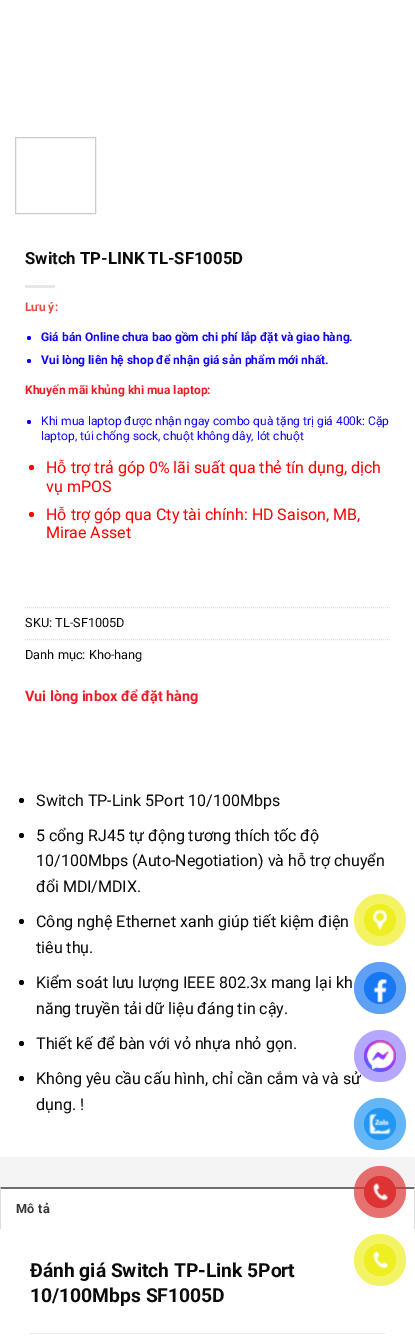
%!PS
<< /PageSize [415 1337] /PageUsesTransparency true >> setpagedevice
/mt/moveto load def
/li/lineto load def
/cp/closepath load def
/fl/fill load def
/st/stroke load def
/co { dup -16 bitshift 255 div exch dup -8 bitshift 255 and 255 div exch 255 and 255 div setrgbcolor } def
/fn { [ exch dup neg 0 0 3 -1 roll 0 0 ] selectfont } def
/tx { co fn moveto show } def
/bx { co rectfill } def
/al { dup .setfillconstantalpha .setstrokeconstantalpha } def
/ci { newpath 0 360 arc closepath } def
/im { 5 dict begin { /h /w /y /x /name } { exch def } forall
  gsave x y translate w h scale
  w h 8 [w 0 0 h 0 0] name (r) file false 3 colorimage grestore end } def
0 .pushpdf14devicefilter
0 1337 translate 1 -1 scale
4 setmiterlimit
0 0 415 1337 16#F4F4F4 bx
0 0 415 1157 16#FFFFFF bx
16#CCCCCC co
15.5 137.5 80 76 rectstroke
25 285 30 3 16#E6E6E6 bx
16#0F00FF co
29 338 2 ci fl
29 361 2 ci fl
29 422 2 ci fl
16#FF0000 co
31.5 467.5 2.5 ci fl
31.5 514.5 2.5 ci fl
16#DDDDDD co
[1 1] 0 setdash
25 607.5 mt 390 607.5 li st
25 639.5 mt 390 639.5 li st
16#0A0A0A co
21.5 800.5 2.5 ci fl
21.5 835.5 2.5 ci fl
21.5 921.5 2.5 ci fl
21.5 982.5 2.5 ci fl
21.5 1043.5 2.5 ci fl
21.5 1078.5 2.5 ci fl
0 1187 415 150 16#FFFFFF bx
16#6D6D6D co
0 1187 mt 415 1187 li 414 1189 li 1 1189 li cp fl
16#DDDDDD co
415 1187 mt 415 1229 li 414 1229 li 414 1189 li cp fl
0 1229 mt 0 1187 li 1 1189 li 1 1229 li cp fl
30 1333 355 1 16#ECECEC bx
0.7 al
16#EEEE22 co
380 920 26 ci fl
1 al
380 920 16 ci fl
(media/1.raw) 372 910 16 21 im
0.7 al
16#1877F2 co
380 988 26 ci fl
1 al
380 988 16 ci fl
(media/2.raw) 373 979 15 24 im
16#64B6F7 co
380 1124 26 ci fl
16#2196F3 co
380 1124 16 ci fl
(media/4.raw) 369 1113 22 22 im
0.7 al
16#DD3333 co
380 1192 26 ci fl
1 al
380 1192 16 ci fl
(media/5.raw) 372 1183 16 18 im
16#F3F364 co
380 1260 26 ci fl
16#EEEE22 co
380 1260 16 ci fl
(media/6.raw) 372 1251 16 18 im
(Switch TP-LINK TL-SF1005D) 25 264 /Roboto-Bold 16.75 16#0A0A0A tx
(Lưu ý:) 25 311 /Roboto-Bold 12 16#E14D43 tx
(Giá bán Online chưa bao gồm chi phí lắp đặt và giao hàng.) 41 341 /Roboto-Bold 12 16#0F00FF tx
(Vui lòng liên hệ shop để nhận giá sản phẩm mới nhất.) 41 364 /Roboto-Bold 12 16#0F00FF tx
(Khuyến mãi khủng khi mua laptop:) 25 394 /Roboto-Bold 12 16#ED1C24 tx
(Khi mua laptop được nhận ngay combo quà tặng trị giá 400k: Cặp) 41 425 /Roboto-Regular 12 16#0F00FF tx
(laptop, túi chống sock, chuột không dây, lót chuột) 41 440 /Roboto-Regular 12 16#0F00FF tx
(Hỗ trợ trả góp 0% lãi suất qua thẻ tín dụng, dịch) 46 473 /Roboto-Regular 16 16#FF0000 tx
(vụ mPOS) 46 492 /Roboto-Regular 16 16#FF0000 tx
(Hỗ trợ góp qua Cty tài chính: HD Saison, MB,) 46 520 /Roboto-Regular 16 16#FF0000 tx
(Mirae Asset) 46 538 /Roboto-Regular 16 16#FF0000 tx
(SKU: TL-SF1005D) 25 627 /Roboto-Regular 12.75 16#0A0A0A tx
(Danh mục: Kho-hang) 25 659 /Roboto-Regular 12.75 16#0A0A0A tx
(Vui lòng inbox để đặt hàng) 25 701 /Roboto-Bold 14.4 16#ED1C24 tx
(Switch TP-Link 5Port 10/100Mbps) 36 806 /Roboto-Regular 16 16#0A0A0A tx
(5 cổng RJ45 tự động tương thích tốc độ) 36 841 /Roboto-Regular 16 16#0A0A0A tx
(10/100Mbps \(Auto-Negotiation\) và hỗ trợ chuyển) 36 866 /Roboto-Regular 16 16#0A0A0A tx
(đổi MDI/MDIX.) 36 892 /Roboto-Regular 16 16#0A0A0A tx
(Công nghệ Ethernet xanh giúp tiết kiệm điện) 36 927 /Roboto-Regular 16 16#0A0A0A tx
(tiêu thụ.) 36 953 /Roboto-Regular 16 16#0A0A0A tx
(Kiểm soát lưu lượng IEEE 802.3x mang lại kh) 36 988 /Roboto-Regular 16 16#0A0A0A tx
(năng truyền tải dữ liệu đáng tin cậy.) 36 1014 /Roboto-Regular 16 16#0A0A0A tx
(Thiết kế để bàn với vỏ nhựa nhỏ gọn.) 36 1049 /Roboto-Regular 16 16#0A0A0A tx
(Không yêu cầu cấu hình, chỉ cần cắm và và sử) 36 1084 /Roboto-Regular 16 16#0A0A0A tx
(dụng. !) 36 1110 /Roboto-Regular 16 16#0A0A0A tx
/Roboto-Bold 12.75 fn
16#363636 co
16 1213 mt .25 0 (Mô tả) ashow
(Đánh giá Switch TP-Link 5Port) 30 1277 /Roboto-Bold 19.25 16#0A0A0A tx
(10/100Mbps SF1005D) 30 1302 /Roboto-Bold 19.25 16#0A0A0A tx
16#B5A7FF co
380 1056 26 ci fl
16#6A4FFE co
380 1056 16 ci fl
(media/3.raw) 364 1040 32 32 im
.poppdf14devicefilter showpage
